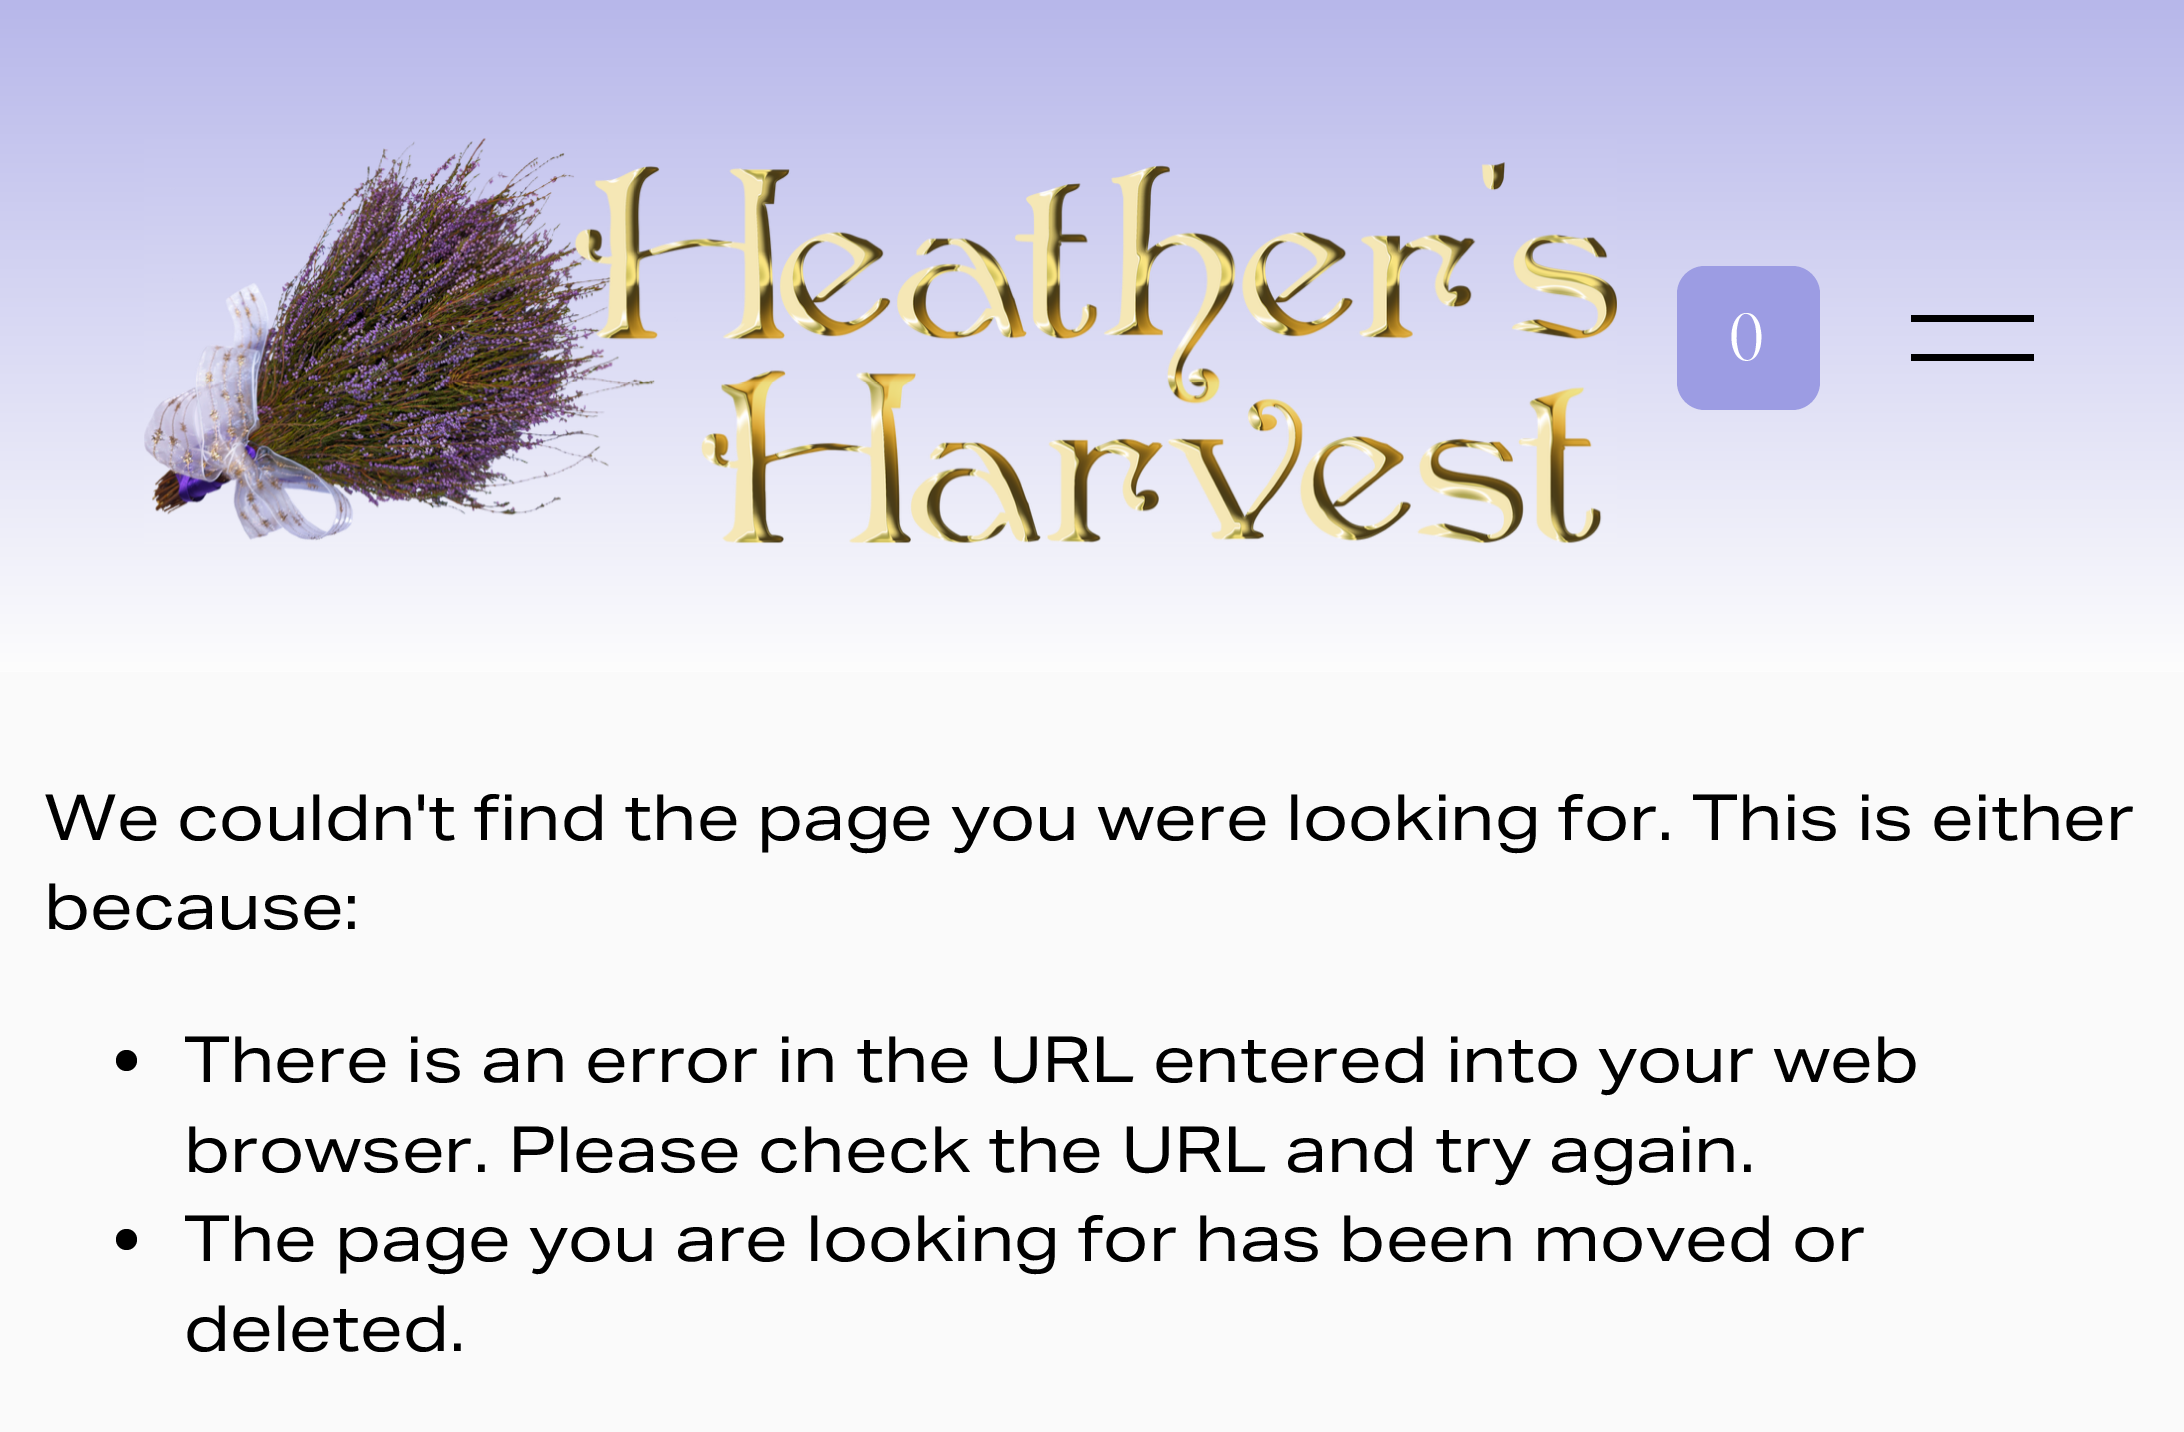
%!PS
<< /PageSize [2184 1432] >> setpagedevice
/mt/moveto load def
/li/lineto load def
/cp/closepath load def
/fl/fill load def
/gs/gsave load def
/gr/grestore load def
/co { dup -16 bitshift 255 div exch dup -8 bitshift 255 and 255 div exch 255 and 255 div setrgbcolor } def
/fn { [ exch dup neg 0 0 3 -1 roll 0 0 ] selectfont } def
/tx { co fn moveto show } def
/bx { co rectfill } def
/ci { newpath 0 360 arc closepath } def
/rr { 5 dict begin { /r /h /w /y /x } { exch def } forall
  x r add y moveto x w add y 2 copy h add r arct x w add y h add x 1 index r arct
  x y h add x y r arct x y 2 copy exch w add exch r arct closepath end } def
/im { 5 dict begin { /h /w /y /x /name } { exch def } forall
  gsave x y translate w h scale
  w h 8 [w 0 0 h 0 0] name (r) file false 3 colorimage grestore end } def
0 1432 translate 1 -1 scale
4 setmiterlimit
0 0 2184 1432 16#FAFAFA bx
gs 0 0 mt 2184 0 li 2184 672 li 0 672 li cp clip newpath
<< /ShadingType 2 /ColorSpace /DeviceRGB /Coords [1092 0 1092 672] /Extend [true true] /Function << /FunctionType 2 /Domain [0 1] /C0 [.718 .718 .918] /C1 [.992 .992 .992] /N 1 >> >> shfill gr
(media/1.raw) 144 138 1473 406 im
16#9C9CE3 co
1677 266 143 144 28 rr fl
1911 315 123 7 16#000000 bx
1911 354 123 7 16#000000 bx
126.5 1060.5 10.5 ci fl
126.5 1239.5 10.5 ci fl
(0) 1728 360 /CormorantInfant-Regular 74 16#FFFFFF tx
/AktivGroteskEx-Regular 63.85 fn
16#000000 co
44 840 mt -.1 0 32 (We couldn't find the page you were looking for. This is either) widthshow
(because:) 44 929 /AktivGroteskEx-Regular 63.85 16#000000 tx
(There is an error in the URL entered into your web) 184 1082 /AktivGroteskEx-Regular 63.85 16#000000 tx
(browser. Please check the URL and try again.) 184 1172 /AktivGroteskEx-Regular 63.85 16#000000 tx
(The page you are looking for has been moved or) 184 1261 /AktivGroteskEx-Regular 63.85 16#000000 tx
(deleted.) 184 1351 /AktivGroteskEx-Regular 63.85 16#000000 tx
showpage
